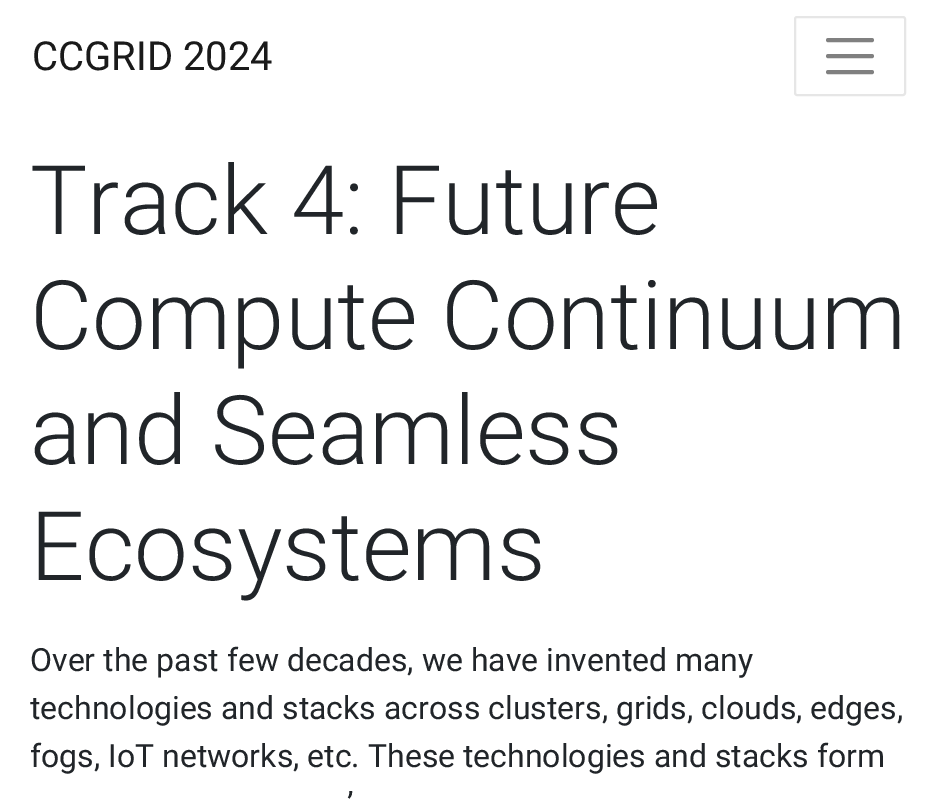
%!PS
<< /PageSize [938 805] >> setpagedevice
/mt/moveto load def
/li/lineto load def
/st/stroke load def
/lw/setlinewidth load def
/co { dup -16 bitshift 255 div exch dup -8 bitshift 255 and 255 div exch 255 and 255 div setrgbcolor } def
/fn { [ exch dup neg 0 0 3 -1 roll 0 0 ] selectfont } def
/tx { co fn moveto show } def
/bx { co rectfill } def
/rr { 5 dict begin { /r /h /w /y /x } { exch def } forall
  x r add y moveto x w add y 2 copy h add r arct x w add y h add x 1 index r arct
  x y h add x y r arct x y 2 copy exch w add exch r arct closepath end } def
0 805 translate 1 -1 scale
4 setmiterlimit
0 0 938 805 16#FFFFFF bx
16#E6E6E6 co
2 lw
795 17 110 78 2 rr st
16#808080 co
4 lw
1 setlinecap
828 40 mt 872 40 li 828 56 mt 872 56 li 828 72 mt 872 72 li st
(CCGRID 2024) 32 70 /Roboto-Regular 40 16#1A1A1A tx
(Track 4: Future) 30 234 /Roboto-Light 96 16#212529 tx
(Compute Continuum) 30 349 /Roboto-Light 96 16#212529 tx
(and Seamless) 30 464 /Roboto-Light 96 16#212529 tx
(Ecosystems) 30 580 /Roboto-Light 96 16#212529 tx
(Over the past few decades, we have invented many) 30 671 /Roboto-Regular 32 16#212529 tx
(technologies and stacks across clusters, grids, clouds, edges,) 30 719 /Roboto-Regular 32 16#212529 tx
(fogs, IoT networks, etc. These technologies and stacks form) 30 767 /Roboto-Regular 32 16#212529 tx
(’) 347 815 /Roboto-Regular 32 16#212529 tx
showpage
